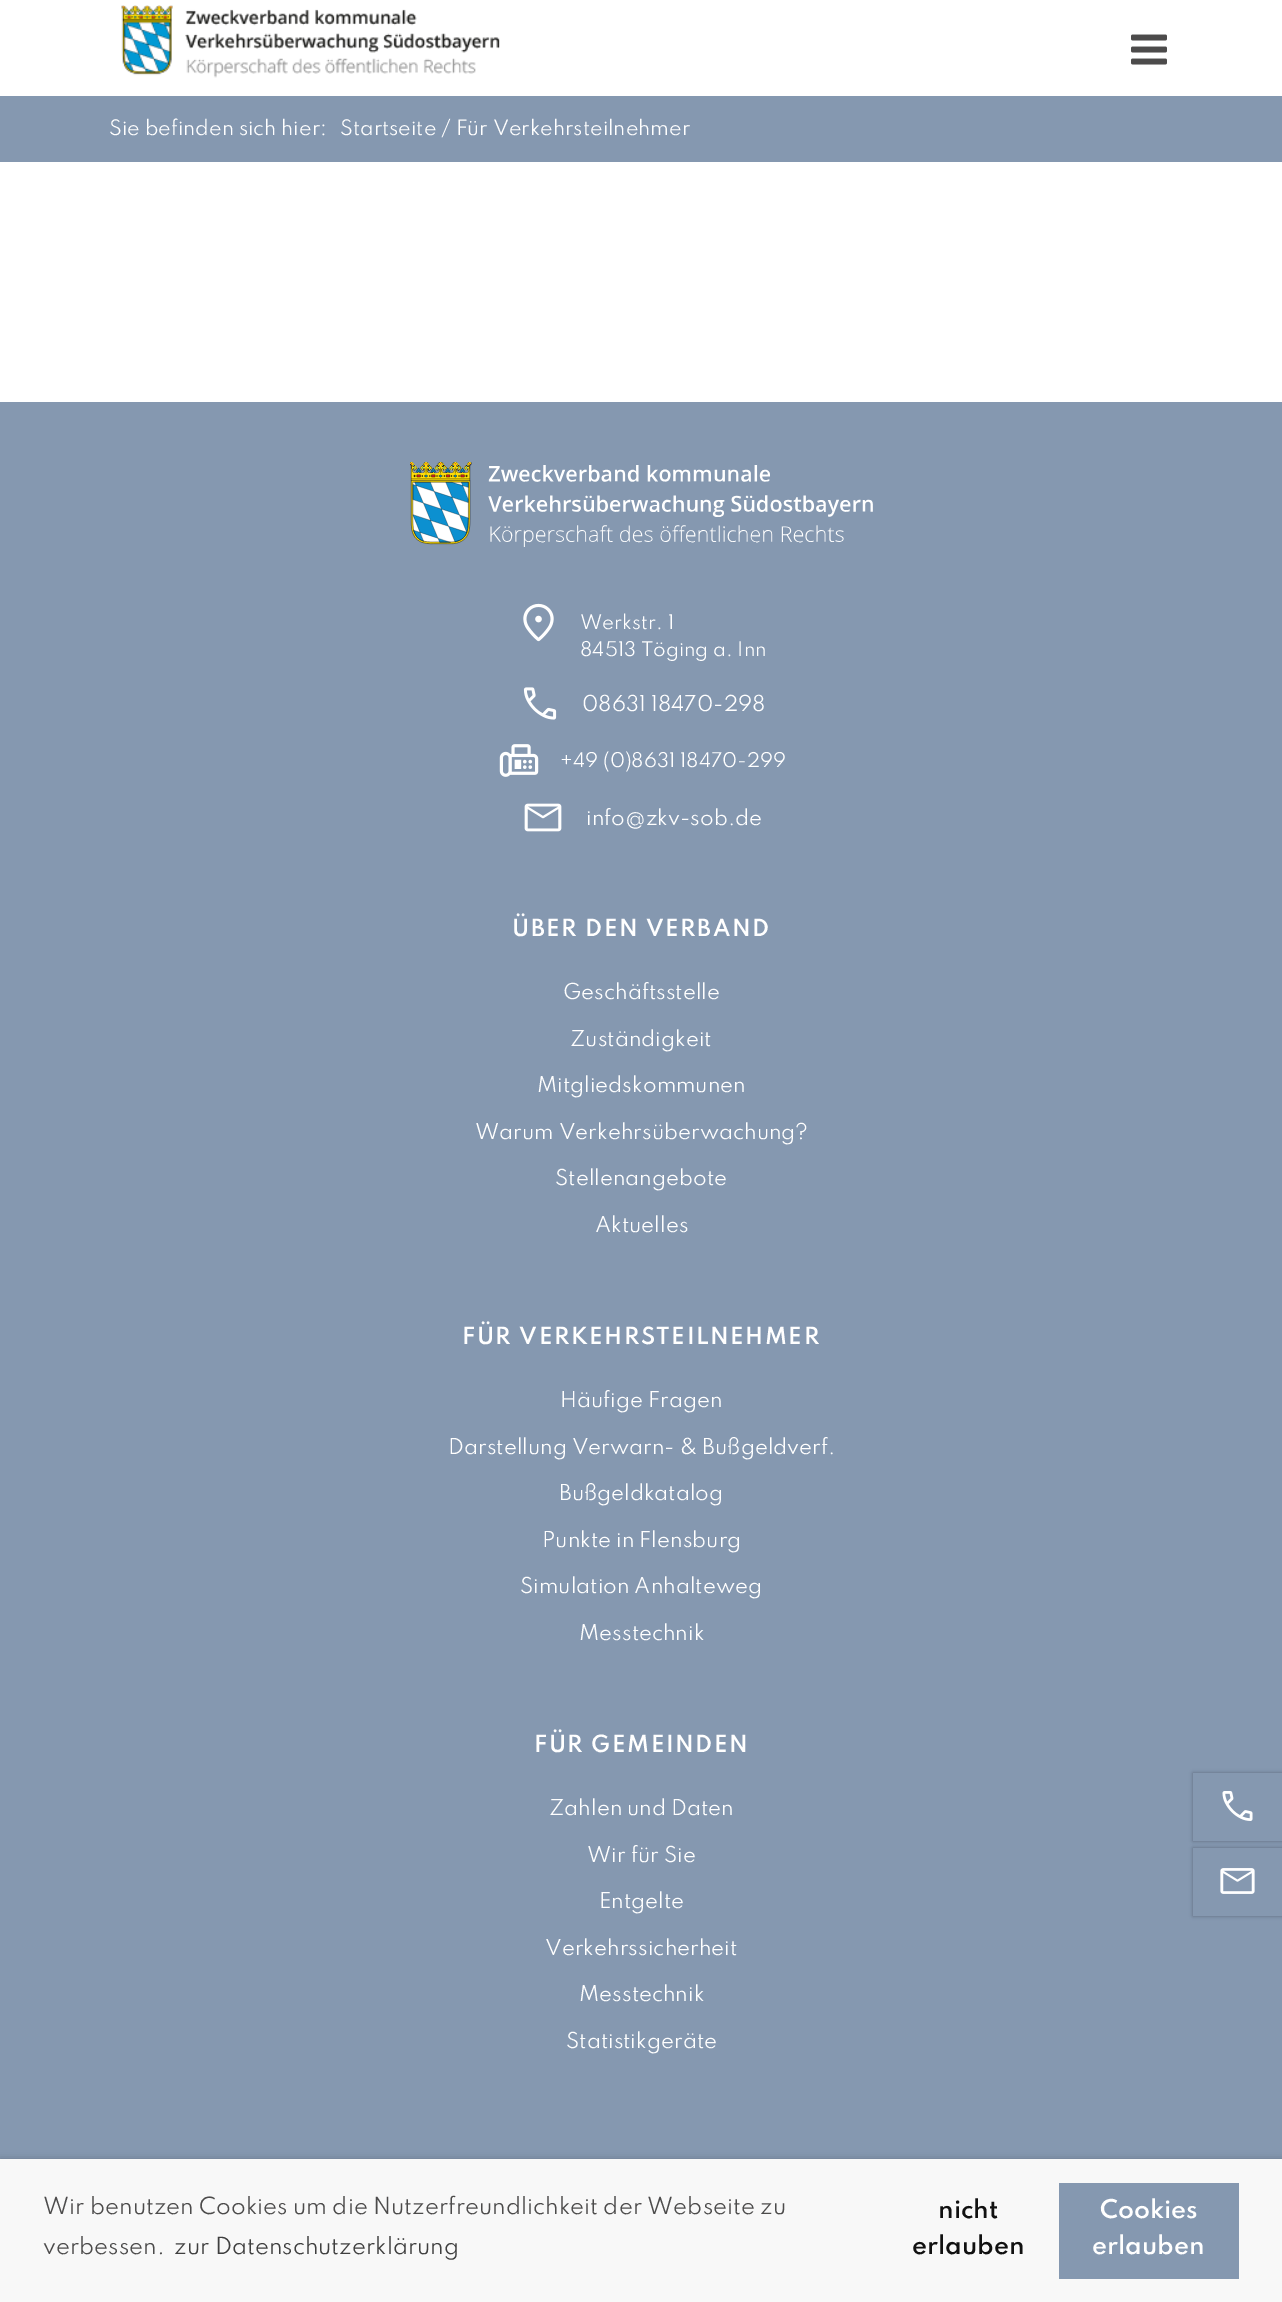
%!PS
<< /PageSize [1282 2302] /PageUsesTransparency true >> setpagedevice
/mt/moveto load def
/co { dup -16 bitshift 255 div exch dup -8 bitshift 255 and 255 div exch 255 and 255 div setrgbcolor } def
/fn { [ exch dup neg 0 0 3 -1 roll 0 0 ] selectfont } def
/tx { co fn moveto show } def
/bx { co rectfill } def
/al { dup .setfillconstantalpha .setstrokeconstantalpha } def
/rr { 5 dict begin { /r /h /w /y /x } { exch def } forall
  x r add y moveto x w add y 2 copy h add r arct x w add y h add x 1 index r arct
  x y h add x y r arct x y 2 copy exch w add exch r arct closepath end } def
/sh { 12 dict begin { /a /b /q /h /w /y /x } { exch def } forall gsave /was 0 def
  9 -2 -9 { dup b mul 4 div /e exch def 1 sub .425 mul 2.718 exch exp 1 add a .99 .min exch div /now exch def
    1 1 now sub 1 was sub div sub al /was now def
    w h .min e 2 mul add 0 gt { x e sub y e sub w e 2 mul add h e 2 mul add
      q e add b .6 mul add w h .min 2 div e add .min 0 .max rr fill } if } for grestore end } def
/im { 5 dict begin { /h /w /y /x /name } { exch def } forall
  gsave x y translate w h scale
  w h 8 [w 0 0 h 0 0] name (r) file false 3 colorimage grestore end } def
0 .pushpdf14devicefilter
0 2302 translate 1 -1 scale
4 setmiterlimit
0 0 1282 2302 16#FFFFFF bx
(media/1.raw) 121 5 379 73 im
(media/2.raw) 1131 34 36 31 im
0 96 1282 66 16#8598B0 bx
0 402 1282 1757 16#8598B0 bx
(media/3.raw) 410 462 463 85 im
(media/4.raw) 523 603 31 39 im
(media/5.raw) 523 687 34 33 im
(media/6.raw) 499 744 40 33 im
(media/7.raw) 524 803 38 29 im
16#000000 co
1193 1773 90 68 0 2 .3 sh
1193 1773 89 68 16#8598B0 bx
(media/8.raw) 1222 1791 31 30 im
16#000000 co
1193 1848 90 68 0 2 .3 sh
1193 1848 89 68 16#8598B0 bx
(media/9.raw) 1220 1868 35 26 im
16#000000 co
0 2159 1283 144 0 4 .2 sh
0 2159 1282 143 16#F8F8F8 bx
1059 2183 180 96 16#8598B0 bx
(Sie befinden sich hier:) 109 135 /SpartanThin-Thin 18.9 16#FFFFFF tx
(Startseite / Für Verkehrsteilnehmer) 340 135 /SpartanThin-Thin 18.9 16#FFFFFF tx
(Werkstr. 1) 580 629 /SpartanThin-Thin 18 16#FFFFFF tx
(84513 Töging a. Inn) 580 656 /SpartanThin-Thin 18 16#FFFFFF tx
(08631 18470-298) 582 711 /SpartanThin-Thin 19.5 16#FFFFFF tx
(+49 \(0\)8631 18470-299) 560 767 /SpartanThin-Thin 18 16#FFFFFF tx
(info@zkv-sob.de) 586 825 /SpartanThin-Thin 19.5 16#FFFFFF tx
/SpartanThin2-Thin 21 fn
512 936 mt 1.5 0 (ÜBER DEN VERBAND) ashow
(Geschäftsstelle) 563 999 /SpartanThin-Thin 19.5 16#FFFFFF tx
(Zuständigkeit) 570 1046 /SpartanThin-Thin 19.5 16#FFFFFF tx
(Mitgliedskommunen) 537 1092 /SpartanThin-Thin 19.5 16#FFFFFF tx
(Warum Verkehrsüberwachung?) 475 1139 /SpartanThin-Thin 19.5 16#FFFFFF tx
(Stellenangebote) 555 1185 /SpartanThin-Thin 19.5 16#FFFFFF tx
(Aktuelles) 595 1232 /SpartanThin-Thin 19.5 16#FFFFFF tx
/SpartanThin2-Thin 21 fn
462 1344 mt 1.5 0 (FÜR VERKEHRSTEILNEHMER) ashow
(Häufige Fragen) 560 1407 /SpartanThin-Thin 19.5 16#FFFFFF tx
(Darstellung Verwarn- & Bußgeldverf.) 448 1454 /SpartanThin-Thin 19.5 16#FFFFFF tx
(Bußgeldkatalog) 559 1500 /SpartanThin-Thin 19.5 16#FFFFFF tx
(Punkte in Flensburg) 542 1547 /SpartanThin-Thin 19.5 16#FFFFFF tx
(Simulation Anhalteweg) 520 1593 /SpartanThin-Thin 19.5 16#FFFFFF tx
(Messtechnik) 579 1640 /SpartanThin-Thin 19.5 16#FFFFFF tx
/SpartanThin2-Thin 21 fn
534 1752 mt 1.5 0 (FÜR GEMEINDEN) ashow
(Zahlen und Daten) 549 1815 /SpartanThin-Thin 19.5 16#FFFFFF tx
(Wir für Sie) 587 1862 /SpartanThin-Thin 19.5 16#FFFFFF tx
(Entgelte) 599 1908 /SpartanThin-Thin 19.5 16#FFFFFF tx
(Verkehrssicherheit) 545 1955 /SpartanThin-Thin 19.5 16#FFFFFF tx
(Messtechnik) 579 2001 /SpartanThin-Thin 19.5 16#FFFFFF tx
(Statistikgeräte) 566 2048 /SpartanThin-Thin 19.5 16#FFFFFF tx
(Wir benutzen Cookies um die Nutzerfreundlichkeit der Webseite zu) 43 2214 /SpartanThin-Thin 21 16#4C4B4B tx
(verbessen.) 43 2254 /SpartanThin-Thin 21 16#4C4B4B tx
(zur Datenschutzerklärung) 174 2254 /SpartanThin-Thin 21 16#3F3F3F tx
(nicht) 938 2218 /SpartanThin2-Thin 23 16#111111 tx
(erlauben) 912 2254 /SpartanThin2-Thin 23 16#111111 tx
(Cookies) 1100 2218 /SpartanThin2-Thin 23 16#FFFFFF tx
(erlauben) 1092 2254 /SpartanThin2-Thin 23 16#FFFFFF tx
.poppdf14devicefilter showpage
